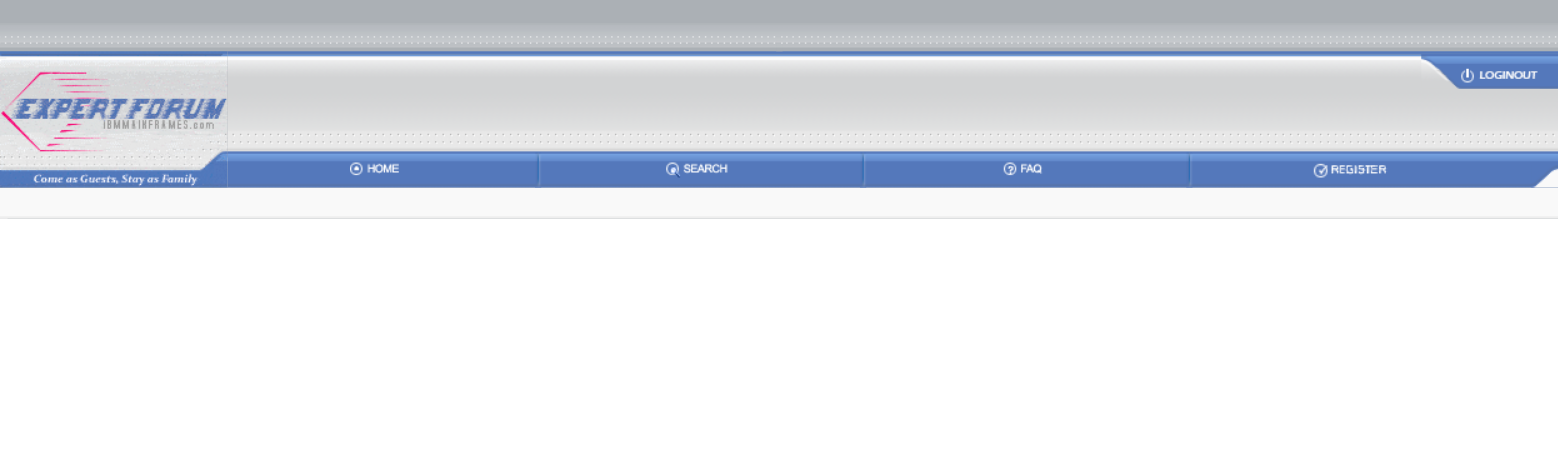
%!PS
<< /PageSize [1558 472] >> setpagedevice
/co { dup -16 bitshift 255 div exch dup -8 bitshift 255 and 255 div exch 255 and 255 div setrgbcolor } def
/bx { co rectfill } def
/im { 5 dict begin { /h /w /y /x /name } { exch def } forall
  gsave x y translate w h scale
  w h 8 [w 0 0 h 0 0] name (r) file false 3 colorimage grestore end } def
0 472 translate 1 -1 scale
4 setmiterlimit
0 0 1558 472 16#ABB0B5 bx
(media/1.raw) 0 23 1558 25 im
(media/4.raw) 227 51 1331 137 im
(media/2.raw) 776 36 7 16 im
(media/6.raw) 227 152 1331 36 im
(media/3.raw) 0 51 228 137 im
(media/5.raw) 1421 54 137 35 im
(media/7.raw) 350 162 49 14 im
(media/8.raw) 535 152 7 36 im
(media/9.raw) 666 162 62 16 im
(media/10.raw) 860 152 7 36 im
(media/11.raw) 1003 162 40 14 im
(media/12.raw) 1186 152 7 36 im
(media/13.raw) 1313 163 75 15 im
(media/14.raw) 1531 165 27 23 im
0 188 1558 22 16#F9F9F9 bx
(media/15.raw) 0 210 1558 9 im
(media/16.raw) 0 218 8 1 im
0 219 1558 253 16#FFFFFF bx
showpage
